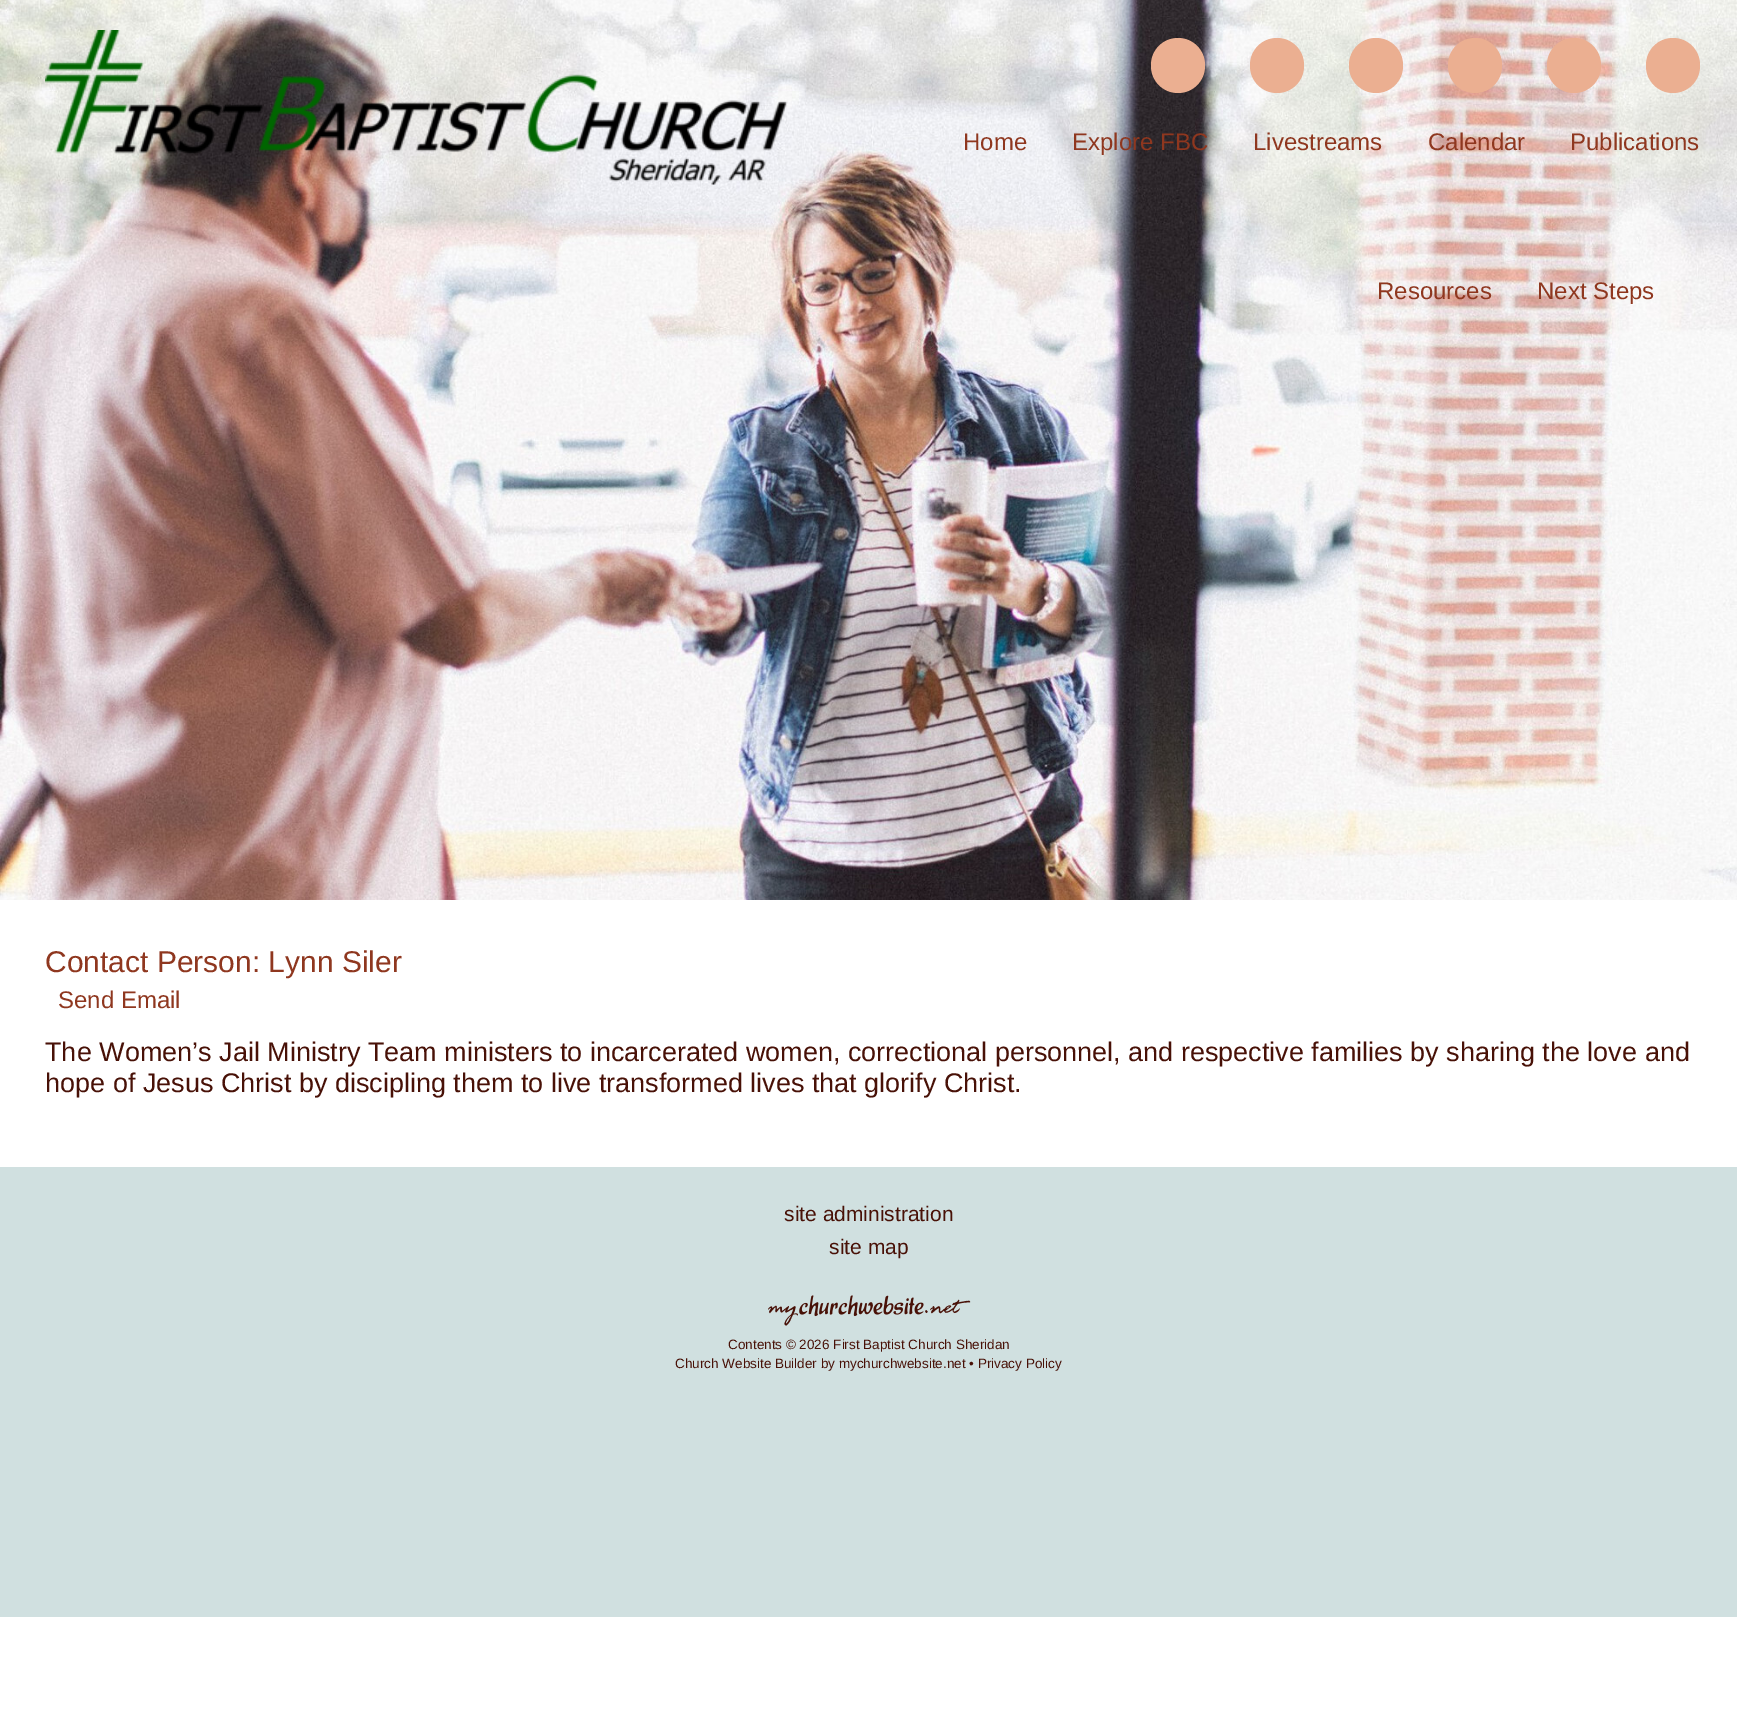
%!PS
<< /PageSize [1737 1731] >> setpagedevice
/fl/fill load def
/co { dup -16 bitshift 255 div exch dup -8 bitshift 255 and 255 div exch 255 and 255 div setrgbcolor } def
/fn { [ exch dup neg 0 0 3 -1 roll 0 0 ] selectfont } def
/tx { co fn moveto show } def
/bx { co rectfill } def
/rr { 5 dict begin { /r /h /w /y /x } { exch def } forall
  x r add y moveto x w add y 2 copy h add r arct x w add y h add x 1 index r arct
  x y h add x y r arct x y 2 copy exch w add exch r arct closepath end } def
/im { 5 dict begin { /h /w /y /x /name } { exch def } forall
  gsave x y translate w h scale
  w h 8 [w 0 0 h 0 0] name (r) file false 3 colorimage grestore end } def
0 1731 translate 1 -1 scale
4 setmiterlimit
0 0 1737 1731 16#FFFFFF bx
(media/1.raw) 0 0 1737 900 im
(media/2.raw) 45 30 743 155 im
16#EBAF91 co
1151 38 54 55 27 rr fl
1250 38 54 55 27 rr fl
1349 38 54 55 27 rr fl
1448 38 54 55 27 rr fl
1547 38 54 55 27 rr fl
1646 38 54 55 27 rr fl
0 1167 1737 450 16#D0E0E0 bx
(media/3.raw) 768 1295 203 31 im
(Home) 963 150 /LiberationSans-Regular 24 16#8F371F tx
(Explore FBC) 1072 150 /LiberationSans-Regular 24 16#8F371F tx
(Livestreams) 1253 150 /LiberationSans-Regular 24 16#8F371F tx
(Calendar) 1428 150 /LiberationSans-Regular 24 16#8F371F tx
(Publications) 1570 150 /LiberationSans-Regular 24 16#8F371F tx
(Resources) 1377 299 /LiberationSans-Regular 24 16#8F371F tx
(Next Steps) 1537 299 /LiberationSans-Regular 24 16#8F371F tx
(Contact Person: Lynn Siler) 45 972 /LiberationSans-Regular 30 16#8F371F tx
(Send Email) 58 1008 /LiberationSans-Regular 24 16#8F371F tx
(The Women’s Jail Ministry Team ministers to incarcerated women, correctional personnel, and respective families by sharing the love and) 45 1061 /LiberationSans-Regular 27 16#481107 tx
(hope of Jesus Christ by discipling them to live transformed lives that glorify Christ.) 45 1092 /LiberationSans-Regular 27 16#481107 tx
(site administration) 784 1221 /LiberationSans-Regular 21 16#481107 tx
(site map) 829 1254 /LiberationSans-Regular 21 16#481107 tx
(Contents © 2026 First Baptist Church Sheridan) 728 1349 /LiberationSans-Regular 13.5 16#481107 tx
(Church Website Builder by mychurchwebsite.net • Privacy Policy) 675 1368 /LiberationSans-Regular 13.5 16#481107 tx
showpage
